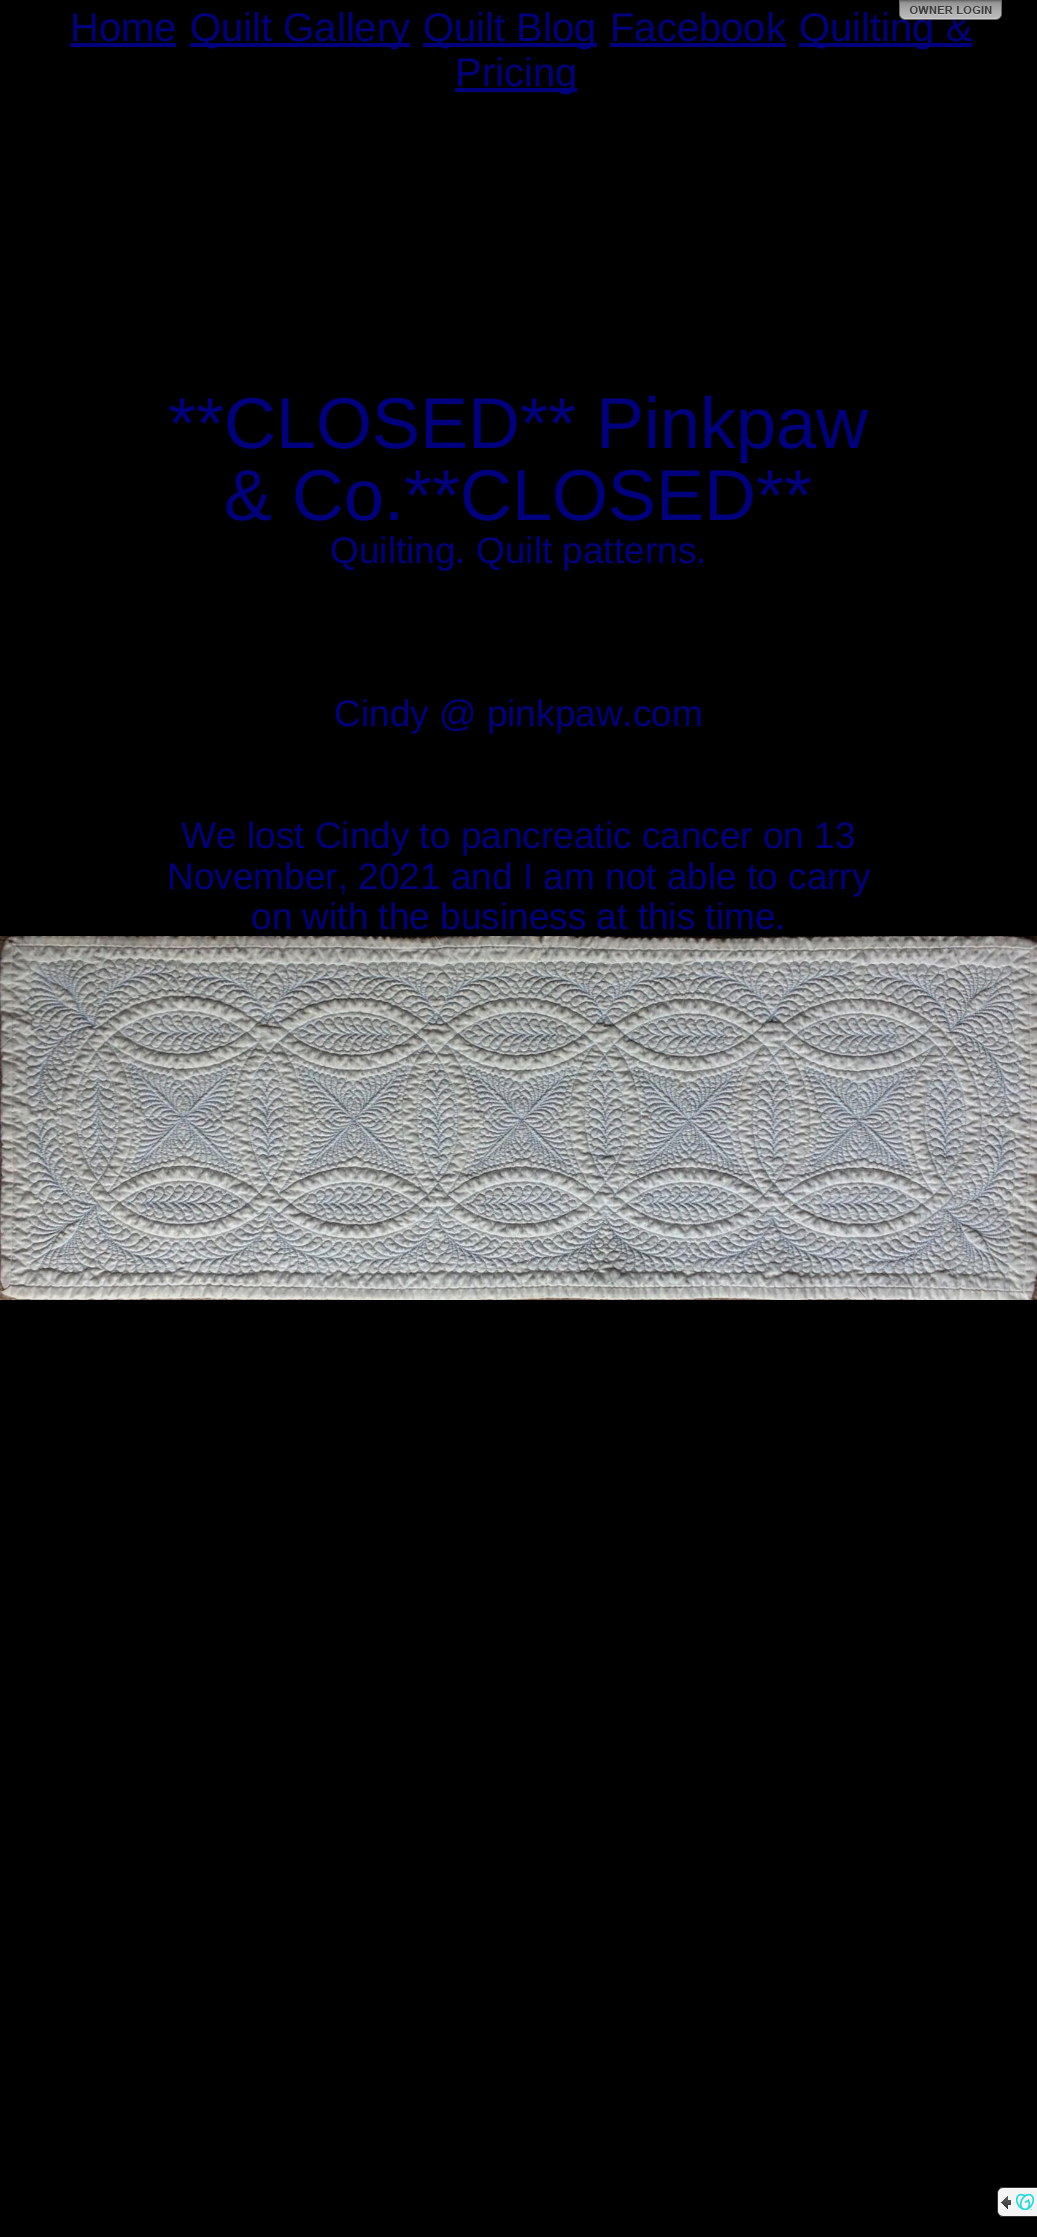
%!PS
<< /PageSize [1037 2237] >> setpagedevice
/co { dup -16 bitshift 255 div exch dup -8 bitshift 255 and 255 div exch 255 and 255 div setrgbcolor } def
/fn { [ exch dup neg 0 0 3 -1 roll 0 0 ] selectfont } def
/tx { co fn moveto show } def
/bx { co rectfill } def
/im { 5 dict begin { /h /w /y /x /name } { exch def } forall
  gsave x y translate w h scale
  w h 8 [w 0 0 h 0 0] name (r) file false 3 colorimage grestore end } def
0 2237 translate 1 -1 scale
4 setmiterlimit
0 0 1037 2237 16#000000 bx
70 43 106 4 16#00007F bx
190 43 220 4 16#00007F bx
423 43 174 4 16#00007F bx
610 43 176 4 16#00007F bx
799 43 173 4 16#00007F bx
455 88 122 4 16#00007F bx
(media/2.raw) 1000 2187 37 30 im
(media/3.raw) 997 2188 14 28 im
(media/4.raw) 1015 2193 20 18 im
(media/5.raw) 0 936 1037 364 im
(Home) 70 41 /LiberationSans-Regular 40 16#00007F tx
(Quilt Gallery) 190 41 /LiberationSans-Regular 40 16#00007F tx
(Quilt Blog) 423 41 /LiberationSans-Regular 40 16#00007F tx
(Facebook) 610 41 /LiberationSans-Regular 40 16#00007F tx
(Quilting &) 799 41 /LiberationSans-Regular 40 16#00007F tx
(media/1.raw) 899 0 103 20 im
(Pricing) 455 86 /LiberationSans-Regular 40 16#00007F tx
(**CLOSED** Pinkpaw) 168 448 /LiberationSans-Regular 72 16#00007F tx
(& Co.**CLOSED**) 224 520 /LiberationSans-Regular 72 16#00007F tx
(Quilting. Quilt patterns.) 330 563 /LiberationSans-Regular 37 16#00007F tx
(Cindy @ pinkpaw.com) 334 726 /LiberationSans-Regular 37 16#00007F tx
(We lost Cindy to pancreatic cancer on 13) 181 848 /LiberationSans-Regular 37 16#00007F tx
(November, 2021 and I am not able to carry) 167 889 /LiberationSans-Regular 37 16#00007F tx
(on with the business at this time.) 251 929 /LiberationSans-Regular 37 16#00007F tx
showpage
